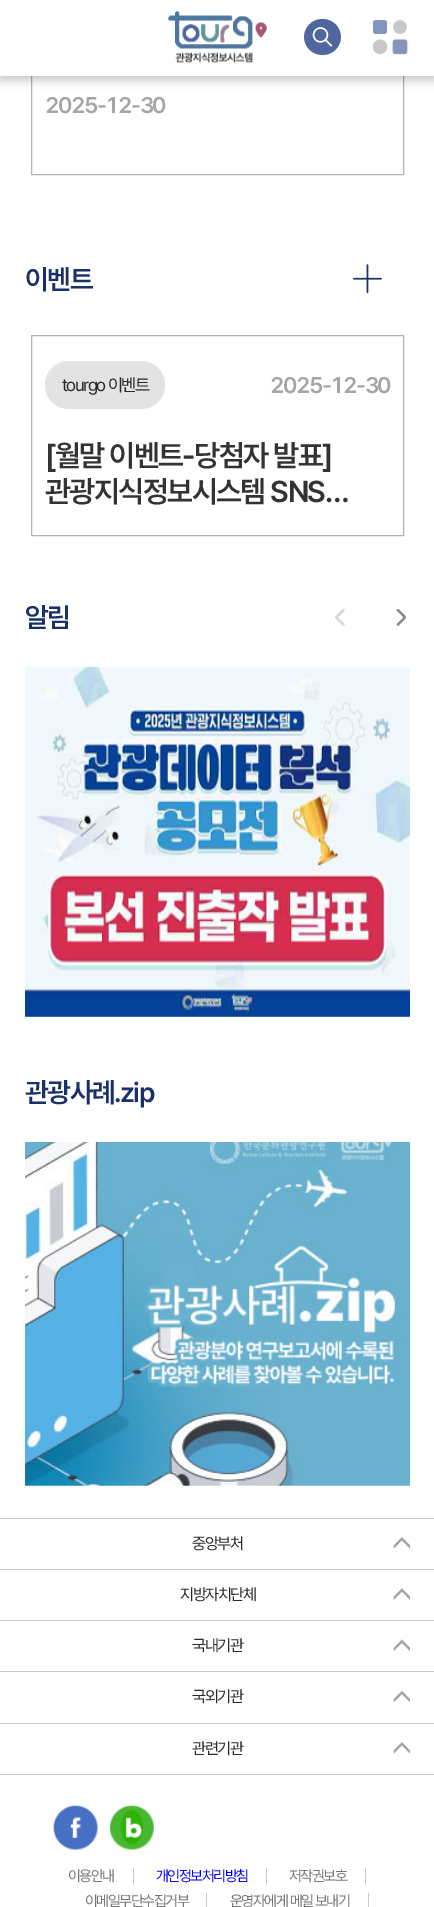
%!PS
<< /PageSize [434 1907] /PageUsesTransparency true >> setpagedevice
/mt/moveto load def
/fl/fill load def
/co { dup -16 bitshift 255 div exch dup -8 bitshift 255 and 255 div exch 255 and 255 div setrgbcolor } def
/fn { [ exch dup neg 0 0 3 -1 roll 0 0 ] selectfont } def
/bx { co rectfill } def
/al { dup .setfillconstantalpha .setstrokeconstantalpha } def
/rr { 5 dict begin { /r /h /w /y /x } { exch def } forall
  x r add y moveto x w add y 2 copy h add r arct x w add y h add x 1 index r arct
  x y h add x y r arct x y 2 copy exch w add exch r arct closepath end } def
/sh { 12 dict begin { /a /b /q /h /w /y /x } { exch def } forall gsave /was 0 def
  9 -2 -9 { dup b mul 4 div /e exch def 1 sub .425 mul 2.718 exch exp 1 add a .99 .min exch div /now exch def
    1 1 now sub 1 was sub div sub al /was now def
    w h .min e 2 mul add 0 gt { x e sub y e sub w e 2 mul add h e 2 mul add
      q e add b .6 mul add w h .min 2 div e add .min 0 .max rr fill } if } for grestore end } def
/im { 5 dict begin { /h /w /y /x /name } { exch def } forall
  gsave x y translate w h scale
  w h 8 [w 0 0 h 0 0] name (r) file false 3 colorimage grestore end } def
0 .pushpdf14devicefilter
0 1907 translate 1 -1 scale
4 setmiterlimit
0 0 434 1907 16#FFFFFF bx
16#B2B2B2 co
31.5 -.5 372 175 rectstroke
16#000000 co
0 4 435 76 0 5 .24 sh
0 0 434 76 16#FFFFFF bx
(media/1.raw) 168 11 99 53 im
(media/2.raw) 304 19 37 36 im
(media/3.raw) 373 20 35 35 im
(media/4.raw) 353 264 29 30 im
16#B2B2B2 co
31.5 335.5 372 200 rectstroke
16#E3E3E3 co
45 361 120 48 24 rr fl
(media/5.raw) 335 609 10 17 im
(media/6.raw) 396 609 10 17 im
(media/7.raw) 25 666 385 351 im
(media/8.raw) 25 1142 385 344 im
0 1518 434 1 16#CACACA bx
0 1774 434 1 16#CACACA bx
0 1569 434 1 16#CACACA bx
(media/9.raw) 393 1537 17 12 im
0 1620 434 1 16#CACACA bx
(media/10.raw) 393 1588 17 12 im
0 1671 434 1 16#CACACA bx
(media/11.raw) 393 1639 17 12 im
0 1723 434 1 16#CACACA bx
(media/12.raw) 393 1690 17 12 im
(media/9.raw) 393 1742 17 12 im
(media/13.raw) 53 1805 45 45 im
(media/14.raw) 110 1805 44 45 im
133 1868 1 17 16#CACACA bx
266 1868 1 17 16#CACACA bx
365 1868 1 17 16#CACACA bx
206 1893 1 14 16#CACACA bx
368 1893 1 14 16#CACACA bx
/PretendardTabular-SemiBold 22.5 fn
16#A5A5A5 co
45 113 mt -1.5 0 (2025-12-30) ashow
/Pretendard-SemiBold 27.5 fn
16#1A3068 co
25 289 mt -1.5 0 (이벤트) ashow
/Pretendard-Regular 17.5 fn
16#292929 co
62 391 mt -1.5 0 (tourgo 이벤트) ashow
/PretendardTabular-SemiBold 22.5 fn
16#A5A5A5 co
270 393 mt -1.5 0 (2025-12-30) ashow
/Pretendard-SemiBold 30 fn
16#333333 co
45 466 mt -1.5 0 ([월말 이벤트-당첨자 발표]) ashow
45 502 mt -1.5 0 (관광지식정보시스템 SNS…) ashow
/Pretendard-SemiBold 27.5 fn
16#1A3068 co
25 627 mt -1.5 0 (알림) ashow
25 1102 mt -1.5 0 (관광사례.zip) ashow
/Pretendard-Regular 16.25 fn
16#292929 co
192 1549 mt -1.5 0 (중앙부처) ashow
180 1600 mt -1.5 0 (지방자치단체) ashow
192 1651 mt -1.5 0 (국내기관) ashow
192 1702 mt -1.5 0 (국외기관) ashow
192 1754 mt -1.5 0 (관련기관) ashow
/Pretendard-Regular 15 fn
16#767676 co
68 1881 mt -1.5 0 (이용안내) ashow
16#0000FF co
156 1881 mt -1.5 0 (개인정보처리방침) ashow
16#767676 co
289 1881 mt -1.5 0 (저작권보호) ashow
85 1906 mt -1.5 0 (이메일무단수집거부) ashow
230 1906 mt -1.5 0 (운영자에게 메일 보내기) ashow
.poppdf14devicefilter showpage
